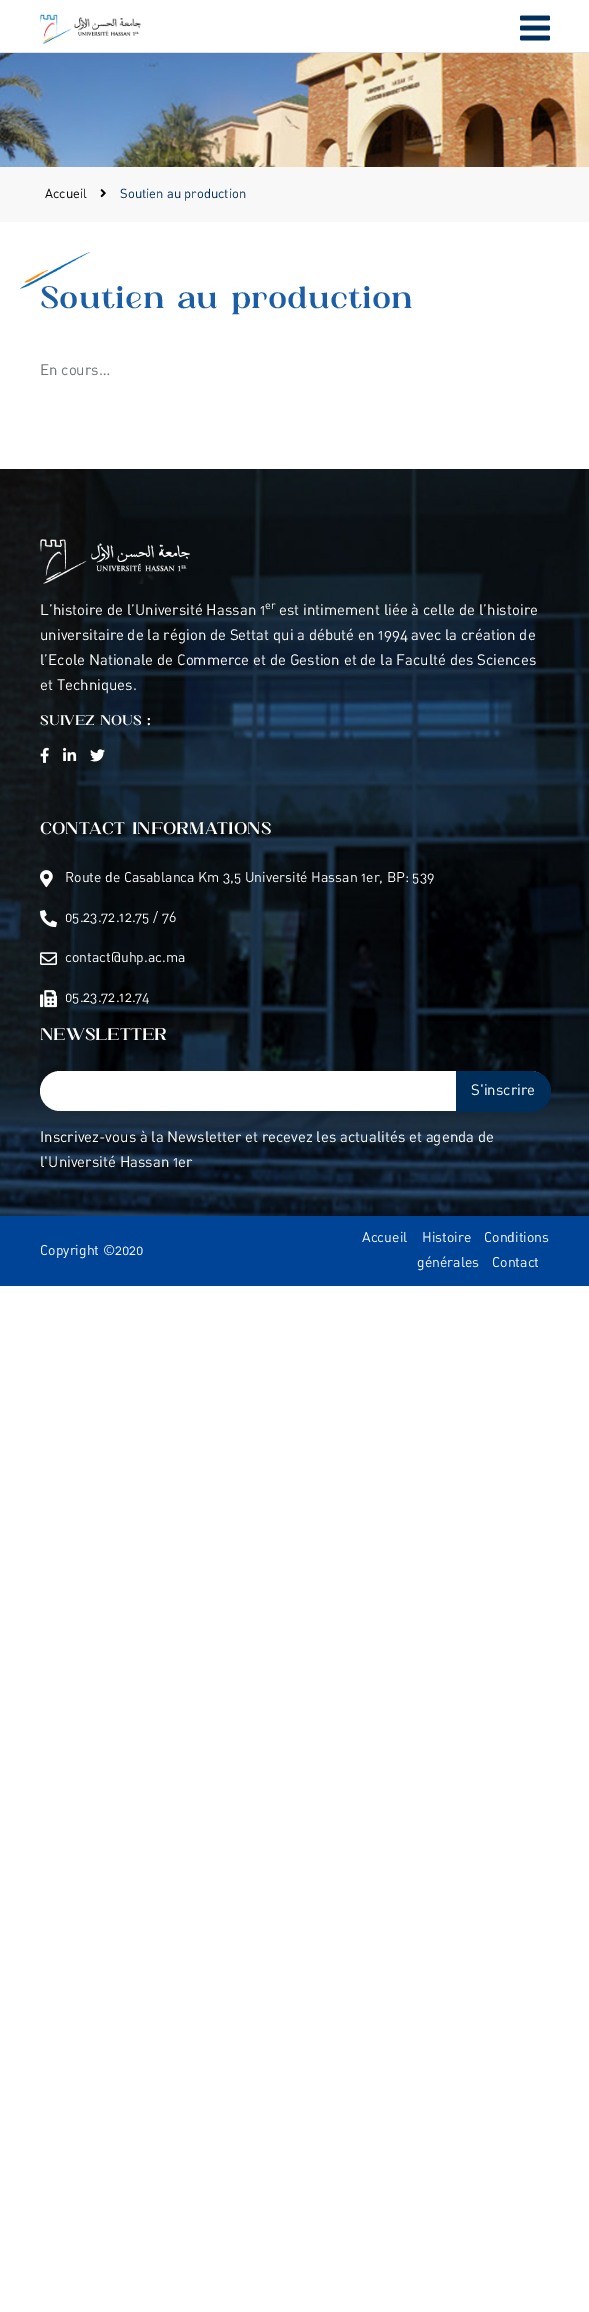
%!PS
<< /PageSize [589 2312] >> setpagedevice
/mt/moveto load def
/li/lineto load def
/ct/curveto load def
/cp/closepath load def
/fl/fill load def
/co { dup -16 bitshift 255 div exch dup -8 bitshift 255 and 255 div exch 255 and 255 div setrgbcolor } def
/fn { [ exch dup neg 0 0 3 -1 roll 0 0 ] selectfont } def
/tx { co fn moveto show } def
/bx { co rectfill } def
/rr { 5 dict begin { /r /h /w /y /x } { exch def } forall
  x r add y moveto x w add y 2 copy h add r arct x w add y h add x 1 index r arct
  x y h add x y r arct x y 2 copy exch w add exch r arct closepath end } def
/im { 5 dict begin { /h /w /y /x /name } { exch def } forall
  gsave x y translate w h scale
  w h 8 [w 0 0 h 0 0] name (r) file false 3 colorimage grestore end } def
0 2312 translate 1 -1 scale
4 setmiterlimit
0 0 589 2312 16#FFFFFF bx
0 52 589 1 16#E1E1E1 bx
(media/1.raw) 39 14 102 31 im
(media/2.raw) 520 15 30 26 im
(media/3.raw) 0 53 589 114 im
0 167 589 55 16#F8F8F8 bx
(media/4.raw) 100 189 6 9 im
(media/5.raw) 20 252 70 37 im
(media/6.raw) 0 469 589 747 im
(media/7.raw) 40 539 150 45 im
(media/8.raw) 40 747 9 16 im
(media/9.raw) 63 747 14 14 im
(media/10.raw) 90 749 15 13 im
(media/11.raw) 40 870 13 18 im
(media/12.raw) 40 910 17 18 im
(media/13.raw) 40 952 17 13 im
(media/14.raw) 40 990 17 18 im
16#FFFFFF co
40 1071 510 40 20 rr fl
16#002E5B co
456 1071 mt 531 1071 li 542 1071 551 1080 551 1091 ct 551 1092 li 551 1103 542 1112 531 1112 ct 456 1112 li cp fl
0 1216 589 70 16#004498 bx
(Accueil) 45 198 /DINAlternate-Regular 13 16#000000 tx
(Soutien au production) 120 198 /DINAlternate-Regular 13 16#002E5B tx
(Soutien au production) 40 308 /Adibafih-Regular 31 16#1C5EA6 tx
(En cours…) 40 375 /DINAlternate-Regular 15 16#707477 tx
(L’histoire de l’Université Hassan 1) 40 615 /DINAlternate-Regular 15 16#FFFFFF tx
(er) 265 609 /DINAlternate-Regular 11 16#FFFFFF tx
(est intimement liée à celle de l’histoire) 279 615 /DINAlternate-Regular 15 16#FFFFFF tx
(universitaire de la région de Settat qui a débuté en 1994 avec la création de) 40 640 /DINAlternate-Regular 15 16#FFFFFF tx
(l’Ecole Nationale de Commerce et de Gestion et de la Faculté des Sciences) 40 665 /DINAlternate-Regular 15 16#FFFFFF tx
(et Techniques.) 40 690 /DINAlternate-Regular 15 16#FFFFFF tx
(SUIVEZ NOUS :) 40 725 /Adibafih-Regular 14 16#FFFFFF tx
(CONTACT INFORMATIONS) 40 834 /Adibafih-Regular 17 16#FFFFFF tx
(Route de Casablanca Km 3,5 Université Hassan 1er, BP: 539) 65 882 /DINAlternate-Regular 14 16#FFFFFF tx
(05.23.72.12.75 / 76) 65 922 /DINAlternate-Regular 14 16#FFFFFF tx
(contact@uhp.ac.ma) 65 962 /DINAlternate-Regular 14 16#FFFFFF tx
(05.23.72.12.74) 65 1002 /DINAlternate-Regular 14 16#FFFFFF tx
(NEWSLETTER) 40 1040 /Adibafih-Regular 17 16#FFFFFF tx
(S'inscrire) 471 1095 /DINAlternate-Regular 15 16#FFFFFF tx
(Inscrivez-vous à la Newsletter et recevez les actualités et agenda de) 40 1142 /DINAlternate-Regular 15 16#FFFFFF tx
(l'Université Hassan 1er) 40 1167 /DINAlternate-Regular 15 16#FFFFFF tx
(Copyright ©2020) 40 1255 /DINAlternate-Regular 14 16#FFFFFF tx
(Accueil) 362 1242 /DINAlternate-Regular 14 16#FFFFFF tx
(Histoire) 422 1242 /DINAlternate-Regular 14 16#FFFFFF tx
(Conditions) 484 1242 /DINAlternate-Regular 14 16#FFFFFF tx
(générales) 417 1267 /DINAlternate-Regular 14 16#FFFFFF tx
(Contact) 492 1267 /DINAlternate-Regular 14 16#FFFFFF tx
showpage
